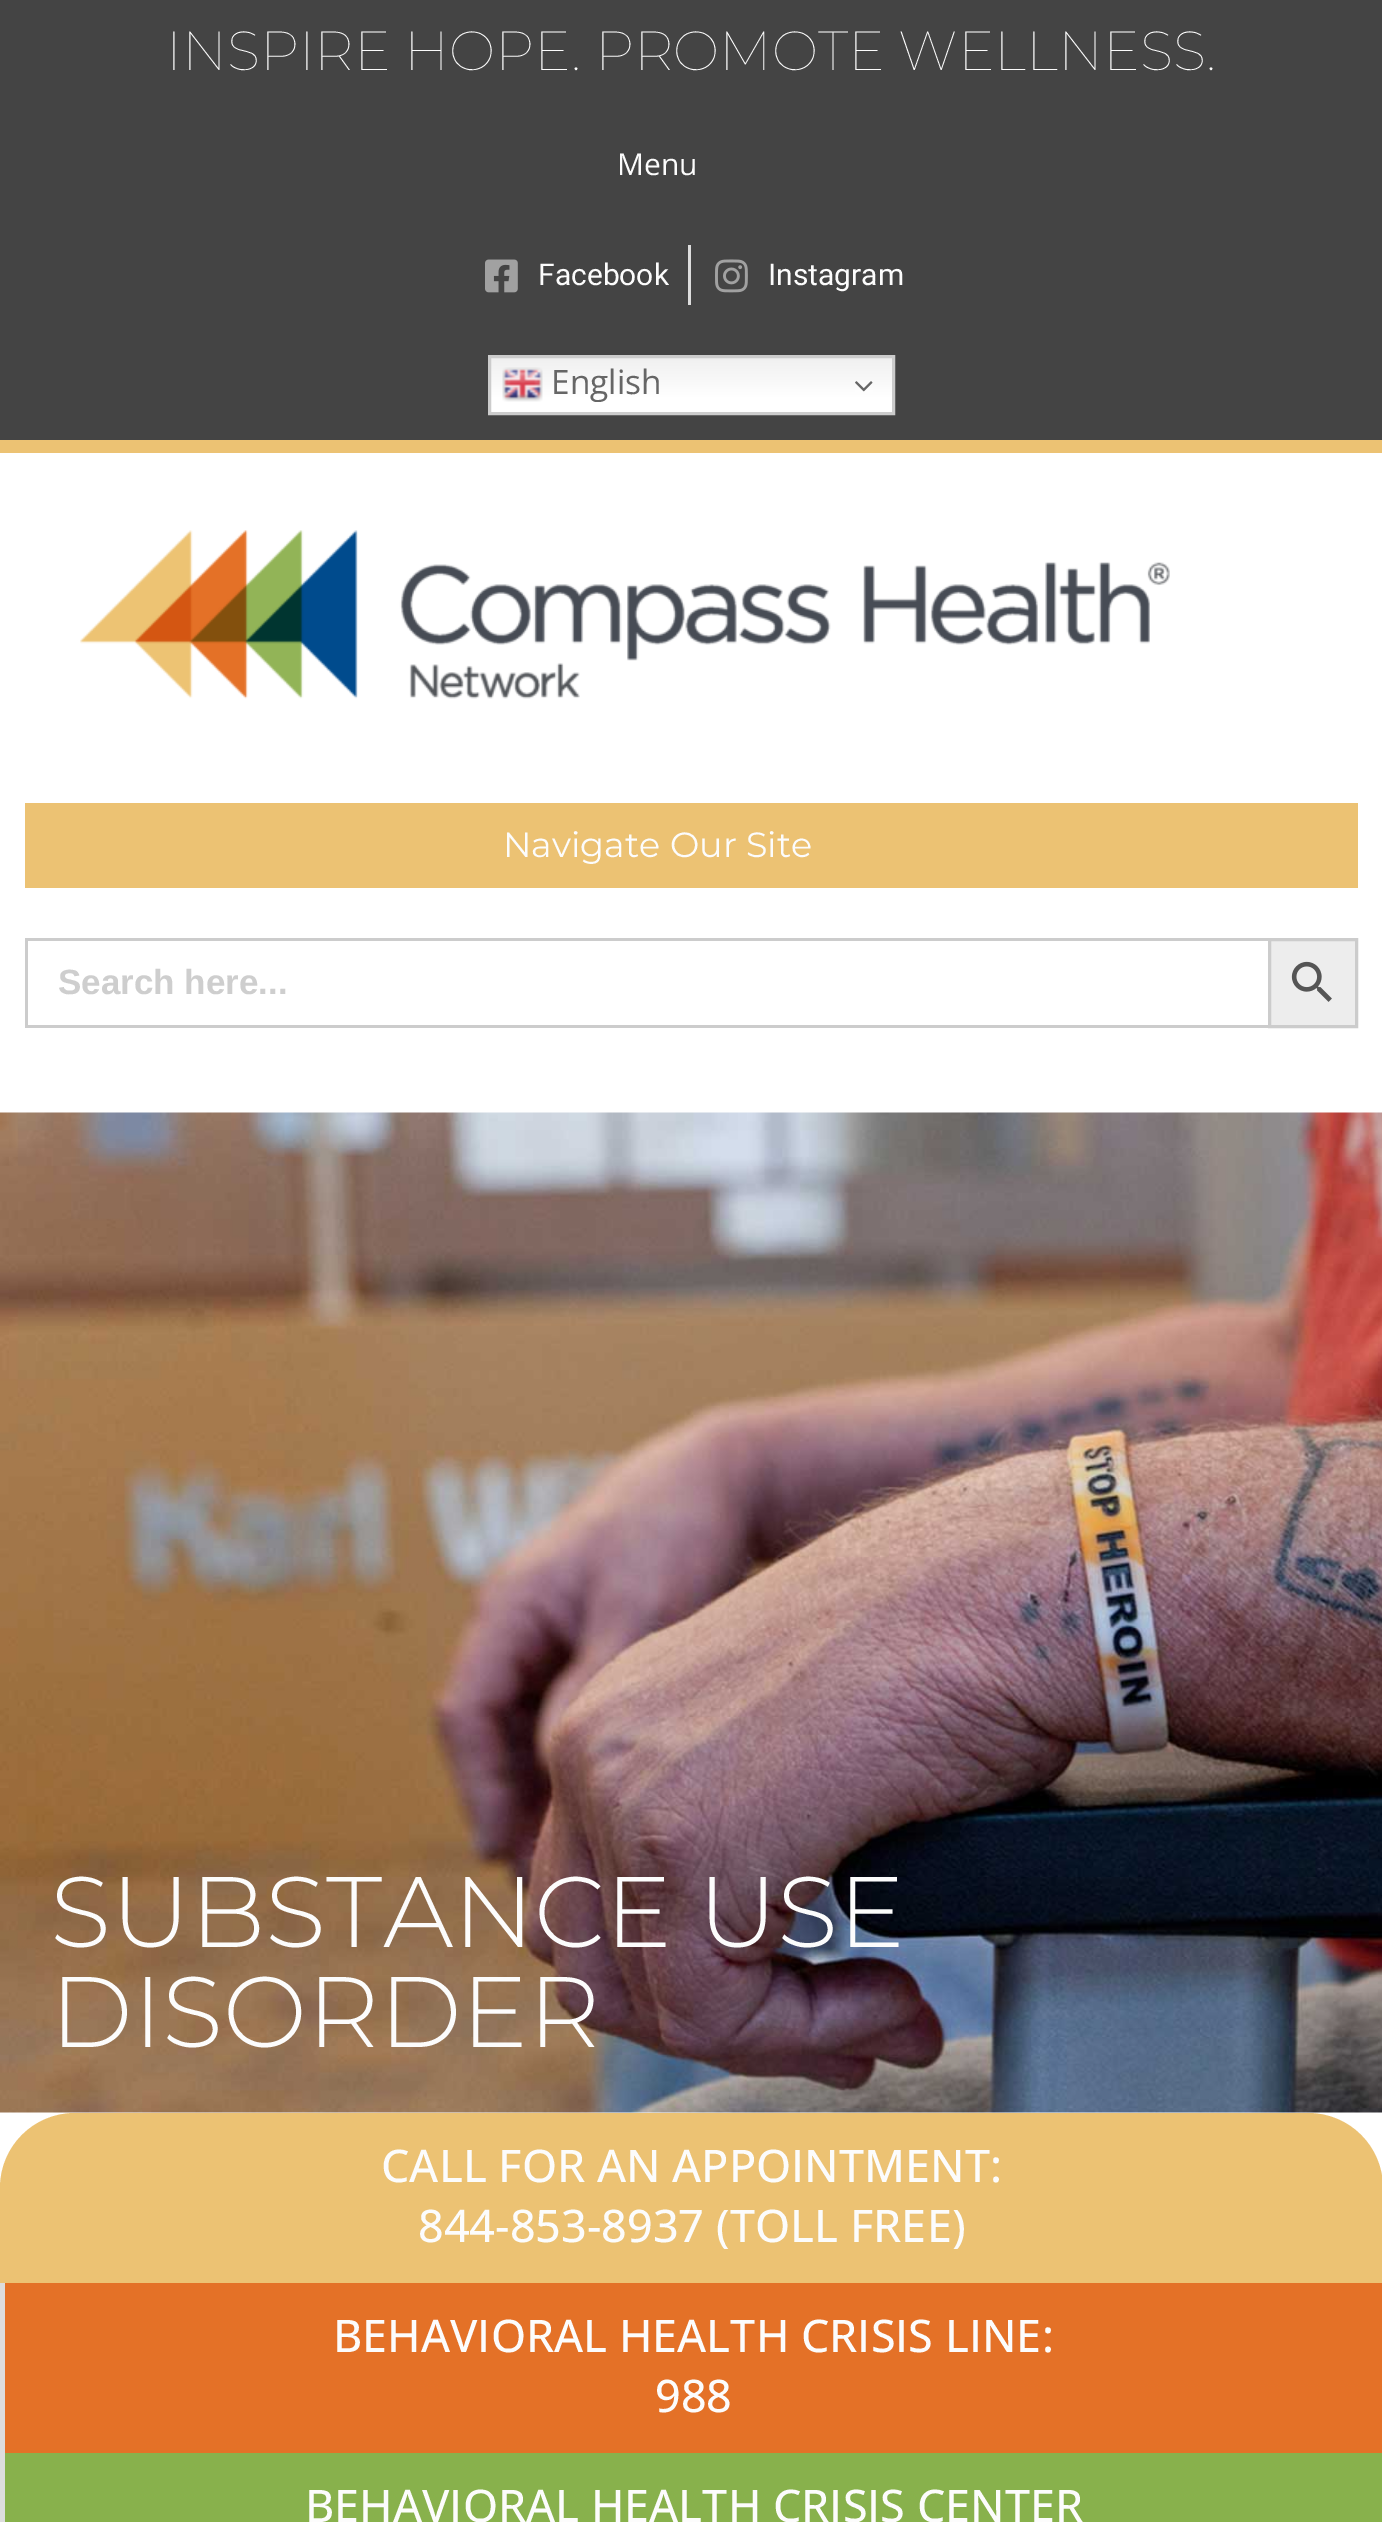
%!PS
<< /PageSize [1382 2522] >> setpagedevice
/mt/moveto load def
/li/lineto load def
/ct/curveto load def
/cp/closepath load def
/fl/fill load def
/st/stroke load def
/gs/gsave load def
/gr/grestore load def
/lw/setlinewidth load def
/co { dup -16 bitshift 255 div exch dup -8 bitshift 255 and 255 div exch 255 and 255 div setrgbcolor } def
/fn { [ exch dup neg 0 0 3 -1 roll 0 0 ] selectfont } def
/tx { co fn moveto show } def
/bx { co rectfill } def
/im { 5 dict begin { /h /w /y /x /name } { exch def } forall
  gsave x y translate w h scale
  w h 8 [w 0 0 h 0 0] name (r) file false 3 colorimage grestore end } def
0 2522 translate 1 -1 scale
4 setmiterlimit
0 0 1382 2522 16#FFFFFF bx
0 0 1382 440 16#444444 bx
0 440 1382 13 16#ECC273 bx
(media/1.raw) 485 259 33 34 im
688 245 3 60 16#DDDDDD bx
(media/2.raw) 715 259 33 34 im
gs 491 358 mt 892 358 li 892 412 li 491 412 li cp clip newpath
<< /ShadingType 2 /ColorSpace /DeviceRGB /Coords [691 355 691 415] /Extend [true true] /Function << /FunctionType 3 /Domain [0 1] /Functions [<< /FunctionType 2 /Domain [0 1] /C0 [.937 .937 .937] /C1 [1 1 1] /N 1 >> << /FunctionType 2 /Domain [0 1] /C0 [1 1 1] /C1 [1 1 1] /N 1 >>] /Bounds [.7] /Encode [0 1 0 1] >> >> shfill gr
16#CCCCCC co
3 lw
489.5 356.5 404 57 rectstroke
(media/3.raw) 502 367 41 35 im
(media/4.raw) 855 381 18 11 im
(media/5.raw) 80 530 1090 169 im
25 803 1333 85 16#ECC273 bx
25 938 1243 3 16#CCCCCC bx
25 1025 1243 3 16#CCCCCC bx
25 938 3 90 16#CCCCCC bx
16#EDEDED co
1269.5 939.5 mt 1356.5 939.5 li 1356.5 1026.5 li 1269.5 1026.5 li cp gs fl gr
16#CCCCCC co
st
(media/6.raw) 1291 961 41 41 im
(media/7.raw) 0 1112 1382 1001 im
16#ECC273 co
75 2113 mt 1308 2113 li 1349.5 2113 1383 2146.5 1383 2188 ct 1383 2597 li 0 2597 li 0 2188 li 0 2146.5 33.5 2113 75 2113 ct cp fl
5 2283 1377 170 16#E47127 bx
0 2283 5 239 16#DDDDDD bx
5 2453 1377 69 16#88B14C bx
(INSPIRE HOPE. PROMOTE WELLNESS.) 166 70 /Montserrat-Thin 55 16#FCFCFC tx
(Menu) 617 175 /OpenSans-Regular 30 16#FCFCFC tx
(Facebook) 538 285 /Roboto-Regular 30 16#FCFCFC tx
(Instagram) 768 285 /Roboto-Regular 30 16#FCFCFC tx
(English) 551 394 /OpenSans-Regular 33.5 16#666666 tx
(Navigate Our Site) 503 857 /Montserrat-Regular 35 16#FCFCFC tx
(Search here...) 58 994 /LiberationSans-Bold 35 16#CECECE tx
(SUBSTANCE USE) 50 1947 /Montserrat-Light 100 16#FCFCFC tx
(DISORDER) 50 2047 /Montserrat-Light 100 16#FCFCFC tx
(CALL FOR AN APPOINTMENT:) 381 2182 /OpenSans-Medium 45 16#FCFCFC tx
(844-853-8937 \(TOLL FREE\)) 418 2242 /OpenSans-Medium 45 16#FCFCFC tx
(BEHAVIORAL HEALTH CRISIS LINE:) 333 2352 /OpenSans-Medium 45 16#FCFCFC tx
(988) 655 2412 /OpenSans-Medium 45 16#FCFCFC tx
(BEHAVIORAL HEALTH CRISIS CENTER) 305 2522 /OpenSans-Medium 45 16#FCFCFC tx
showpage
